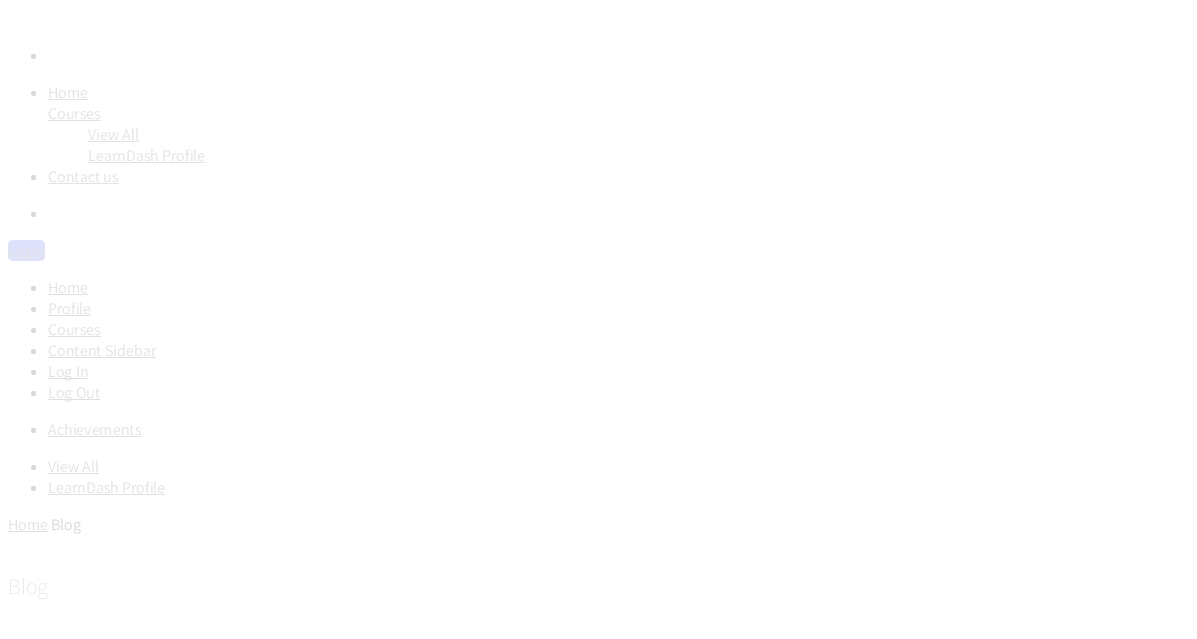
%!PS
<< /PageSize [1197 639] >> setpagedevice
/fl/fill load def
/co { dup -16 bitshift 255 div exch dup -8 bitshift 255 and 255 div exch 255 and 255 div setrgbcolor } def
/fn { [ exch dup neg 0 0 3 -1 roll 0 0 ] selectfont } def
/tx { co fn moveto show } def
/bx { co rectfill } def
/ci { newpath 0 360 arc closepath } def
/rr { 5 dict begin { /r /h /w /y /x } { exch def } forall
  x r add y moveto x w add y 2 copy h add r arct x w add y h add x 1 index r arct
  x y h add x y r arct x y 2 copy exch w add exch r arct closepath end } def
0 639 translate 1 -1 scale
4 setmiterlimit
0 0 1197 639 16#FFFFFF bx
16#D9D9D9 co
33.5 56.5 2.5 ci fl
33.5 93.5 2.5 ci fl
48 99 40 1 16#E3E3E3 bx
48 120 53 1 16#E3E3E3 bx
88 141 51 1 16#E3E3E3 bx
88 162 117 1 16#E3E3E3 bx
16#D9D9D9 co
33.5 177.5 2.5 ci fl
48 183 71 1 16#E3E3E3 bx
16#D9D9D9 co
33.5 214.5 2.5 ci fl
16#DFE2FD co
8 240 37 21 5 rr fl
8 257 37 1 16#E3E3E3 bx
16#D9D9D9 co
33.5 288.5 2.5 ci fl
48 294 40 1 16#E0E0E0 bx
16#D9D9D9 co
33.5 309.5 2.5 ci fl
48 315 43 1 16#E0E0E0 bx
16#D9D9D9 co
33.5 330.5 2.5 ci fl
48 336 53 1 16#E0E0E0 bx
16#D9D9D9 co
33.5 351.5 2.5 ci fl
48 357 108 1 16#E0E0E0 bx
16#D9D9D9 co
33.5 372.5 2.5 ci fl
48 378 40 1 16#E0E0E0 bx
16#D9D9D9 co
33.5 393.5 2.5 ci fl
48 399 52 1 16#E0E0E0 bx
16#D9D9D9 co
33.5 430.5 2.5 ci fl
48 436 93 1 16#E0E0E0 bx
16#D9D9D9 co
33.5 467.5 2.5 ci fl
48 473 51 1 16#E0E0E0 bx
16#D9D9D9 co
33.5 488.5 2.5 ci fl
48 494 117 1 16#E0E0E0 bx
8 531 40 1 16#E0E0E0 bx
(Home) 48 98 /Assistant-Regular 16 16#E3E3E3 tx
(Courses) 48 119 /Assistant-Regular 16 16#E3E3E3 tx
(View All) 88 140 /Assistant-Regular 16 16#E3E3E3 tx
(LearnDash Profile) 88 161 /Assistant-Regular 16 16#E3E3E3 tx
(Contact us) 48 182 /Assistant-Regular 16 16#E3E3E3 tx
(Login) 8 256 /Assistant-Regular 16 16#E3E3E3 tx
(Home) 48 293 /Assistant-Regular 16 16#E3E3E3 tx
(Profile) 48 314 /Assistant-Regular 16 16#E3E3E3 tx
(Courses) 48 335 /Assistant-Regular 16 16#E3E3E3 tx
(Content Sidebar) 48 356 /Assistant-Regular 16 16#E3E3E3 tx
(Log In) 48 377 /Assistant-Regular 16 16#E3E3E3 tx
(Log Out) 48 398 /Assistant-Regular 16 16#E3E3E3 tx
(Achievements) 48 435 /Assistant-Regular 16 16#E3E3E3 tx
(View All) 48 472 /Assistant-Regular 16 16#E3E3E3 tx
(LearnDash Profile) 48 493 /Assistant-Regular 16 16#E3E3E3 tx
(Home) 8 530 /Assistant-Regular 16 16#E3E3E3 tx
(Blog) 51 530 /Assistant-Regular 16 16#D9D9D9 tx
(Blog) 8 594 /Assistant-ExtraLight 22 16#E3E3E3 tx
showpage
